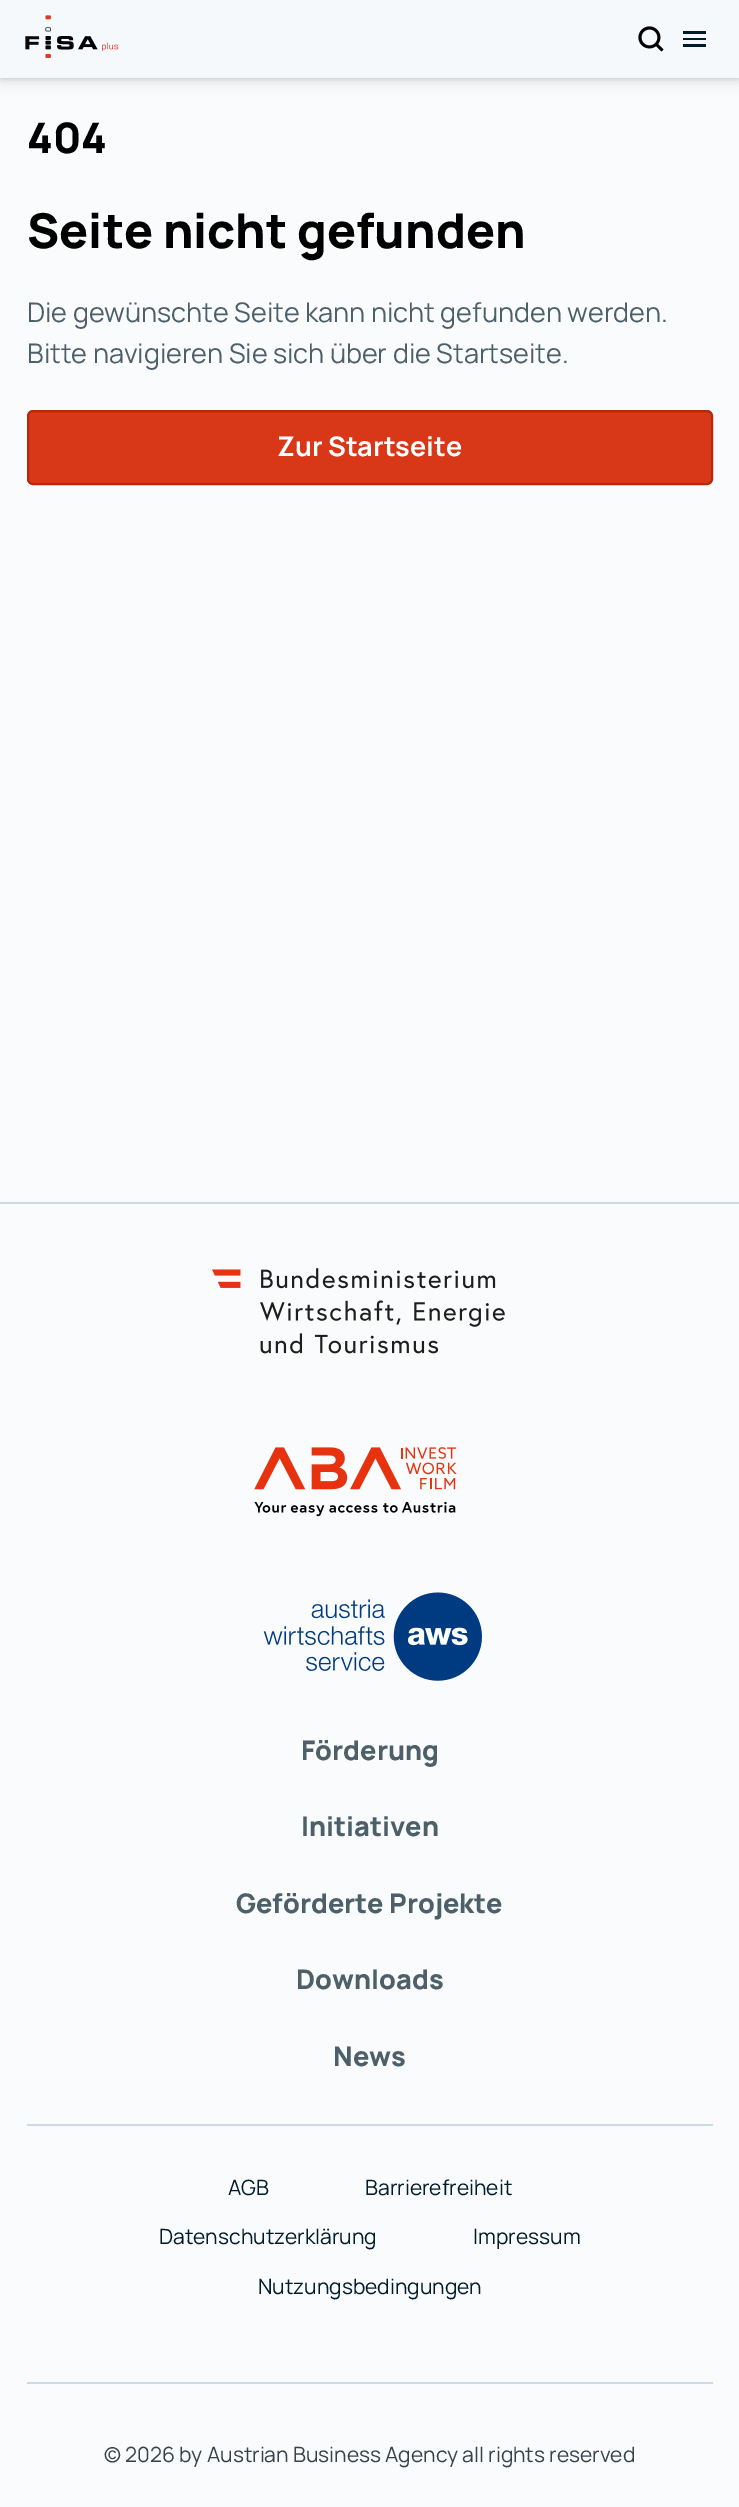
%!PS
<< /PageSize [739 2507] /PageUsesTransparency true >> setpagedevice
/fl/fill load def
/st/stroke load def
/gs/gsave load def
/gr/grestore load def
/lw/setlinewidth load def
/co { dup -16 bitshift 255 div exch dup -8 bitshift 255 and 255 div exch 255 and 255 div setrgbcolor } def
/fn { [ exch dup neg 0 0 3 -1 roll 0 0 ] selectfont } def
/tx { co fn moveto show } def
/bx { co rectfill } def
/al { dup .setfillconstantalpha .setstrokeconstantalpha } def
/rr { 5 dict begin { /r /h /w /y /x } { exch def } forall
  x r add y moveto x w add y 2 copy h add r arct x w add y h add x 1 index r arct
  x y h add x y r arct x y 2 copy exch w add exch r arct closepath end } def
/sh { 12 dict begin { /a /b /q /h /w /y /x } { exch def } forall gsave /was 0 def
  9 -2 -9 { dup b mul 4 div /e exch def 1 sub .425 mul 2.718 exch exp 1 add a .99 .min exch div /now exch def
    1 1 now sub 1 was sub div sub al /was now def
    w h .min e 2 mul add 0 gt { x e sub y e sub w e 2 mul add h e 2 mul add
      q e add b .6 mul add w h .min 2 div e add .min 0 .max rr fill } if } for grestore end } def
/im { 5 dict begin { /h /w /y /x /name } { exch def } forall
  gsave x y translate w h scale
  w h 8 [w 0 0 h 0 0] name (r) file false 3 colorimage grestore end } def
0 .pushpdf14devicefilter
0 2507 translate 1 -1 scale
4 setmiterlimit
0 0 739 2507 16#FAFBFD bx
16#000000 co
0 2 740 78 0 1.5 .07 sh
0 5 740 78 0 5.5 .08 sh
0 0 739 78 16#F6F9FB bx
(media/1.raw) 25 15 94 43 im
(media/2.raw) 638 26 26 26 im
683 31 23 3 16#001C2A bx
683 38 23 2 16#001C2A bx
683 44 23 3 16#001C2A bx
16#D83818 co
28 411 684 73 5 rr gs fl gr
16#B7290D co
2 lw
st
0 1202 739 2 16#CCDAE1 bx
(media/3.raw) 212 1268 293 86 im
(media/4.raw) 254 1447 203 70 im
(media/5.raw) 263 1592 219 89 im
27 2124 686 2 16#CCDAE1 bx
27 2382 686 2 16#CCDAE1 bx
(404) 27 153 /Manrope-ExtraBold 42 16#000000 tx
(Seite nicht gefunden) 27 248 /Manrope-ExtraBold 48 16#000000 tx
(Die gewünschte Seite kann nicht gefunden werden.) 27 322 /Manrope-Regular 27 16#4D606A tx
(Bitte navigieren Sie sich über die Startseite.) 27 363 /Manrope-Regular 27 16#4D606A tx
(Zur Startseite) 277 456 /Manrope-Bold 27 16#FFFFFF tx
(Förderung) 301 1760 /Manrope-ExtraBold 27 16#4D606A tx
(Initiativen) 301 1836 /Manrope-ExtraBold 27 16#4D606A tx
(Geförderte Projekte) 236 1913 /Manrope-ExtraBold 27 16#4D606A tx
(Downloads) 296 1989 /Manrope-ExtraBold 27 16#4D606A tx
(News) 333 2066 /Manrope-ExtraBold 27 16#4D606A tx
(AGB) 228 2195 /Manrope-Regular 21 16#001C2A tx
(Barrierefreiheit) 365 2195 /Manrope-Regular 21 16#001C2A tx
(Datenschutzerklärung) 159 2244 /Manrope-Regular 21 16#001C2A tx
(Impressum) 473 2244 /Manrope-Regular 21 16#001C2A tx
(Nutzungsbedingungen) 258 2294 /Manrope-Regular 21 16#001C2A tx
(© 2026 by Austrian Business Agency all rights reserved) 104 2462 /Manrope-Regular 21 16#36434A tx
.poppdf14devicefilter showpage
